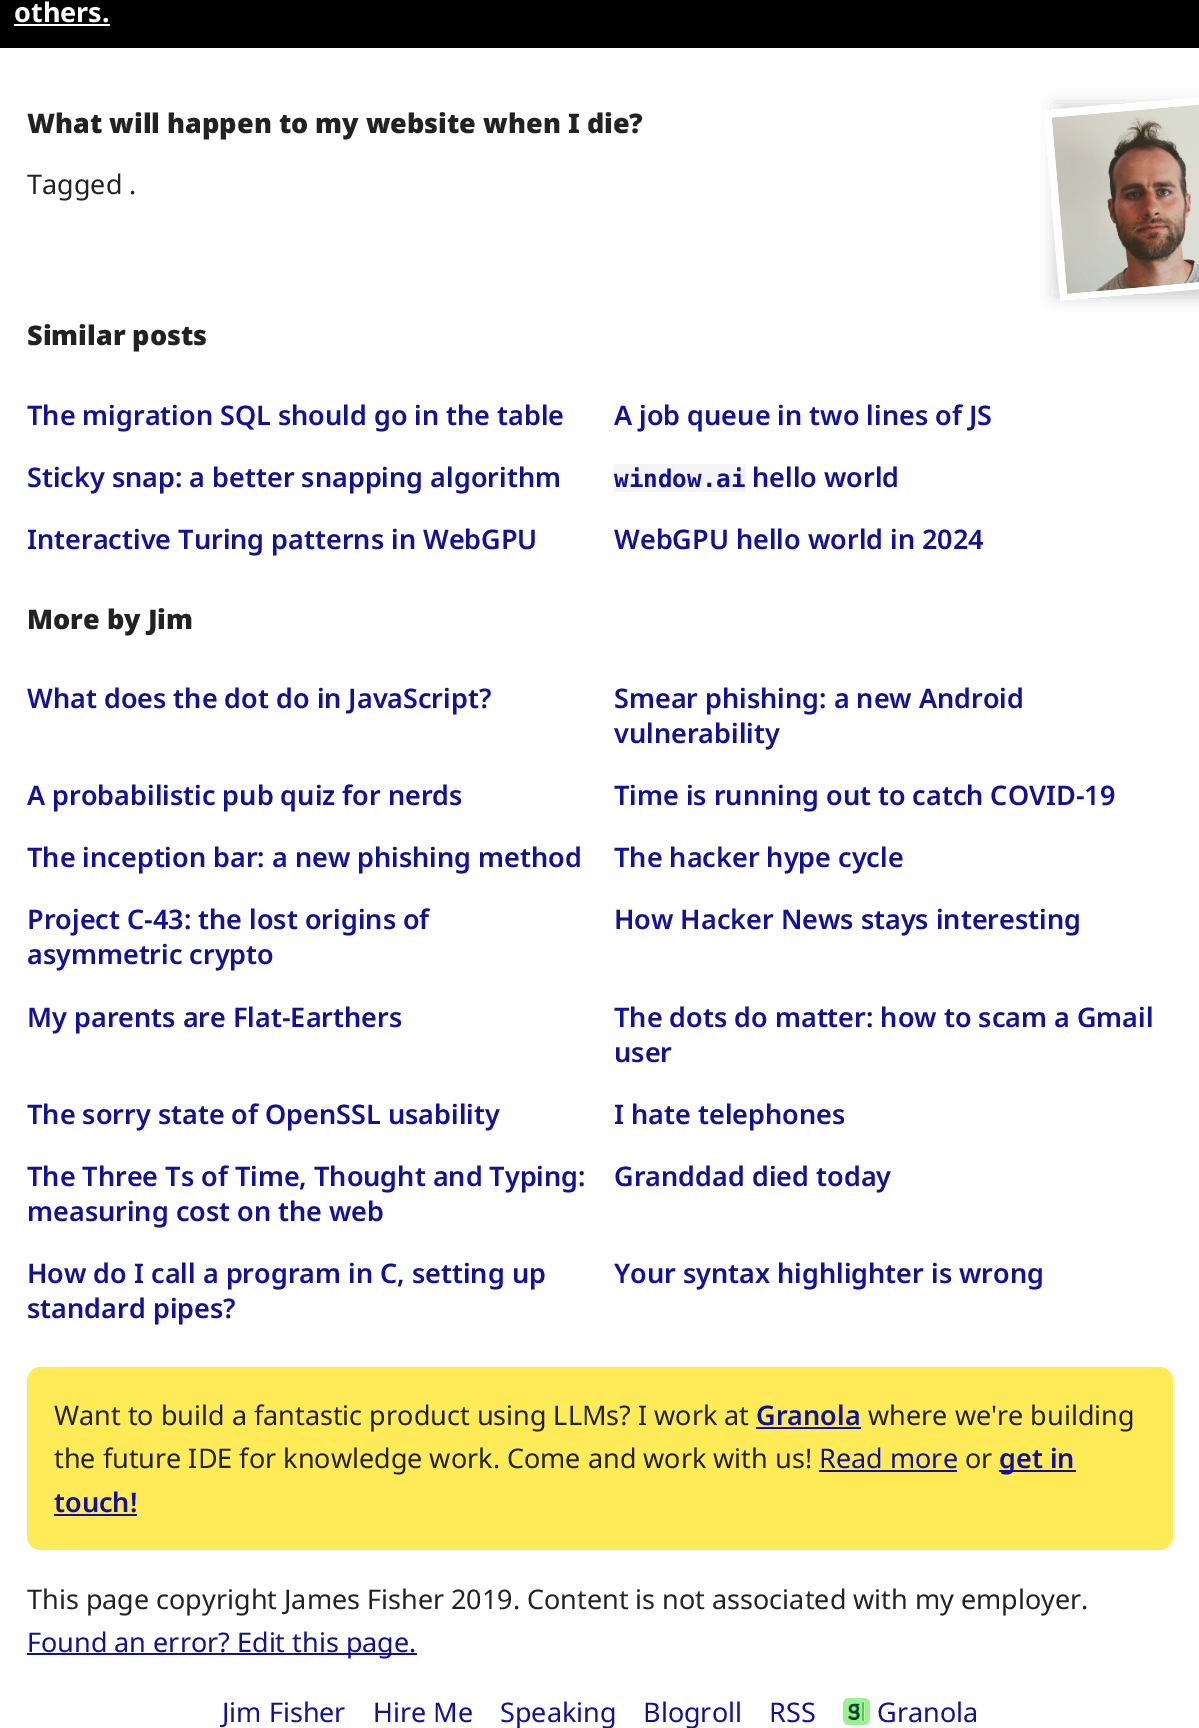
%!PS
<< /PageSize [1199 1728] /PageUsesTransparency true >> setpagedevice
/mt/moveto load def
/li/lineto load def
/cp/closepath load def
/fl/fill load def
/gs/gsave load def
/gr/grestore load def
/co { dup -16 bitshift 255 div exch dup -8 bitshift 255 and 255 div exch 255 and 255 div setrgbcolor } def
/fn { [ exch dup neg 0 0 3 -1 roll 0 0 ] selectfont } def
/tx { co fn moveto show } def
/bx { co rectfill } def
/al { dup .setfillconstantalpha .setstrokeconstantalpha } def
/rr { 5 dict begin { /r /h /w /y /x } { exch def } forall
  x r add y moveto x w add y 2 copy h add r arct x w add y h add x 1 index r arct
  x y h add x y r arct x y 2 copy exch w add exch r arct closepath end } def
/sh { 12 dict begin { /a /b /q /h /w /y /x } { exch def } forall gsave /was 0 def
  9 -2 -9 { dup b mul 4 div /e exch def 1 sub .425 mul 2.718 exch exp 1 add a .99 .min exch div /now exch def
    1 1 now sub 1 was sub div sub al /was now def
    w h .min e 2 mul add 0 gt { x e sub y e sub w e 2 mul add h e 2 mul add
      q e add b .6 mul add w h .min 2 div e add .min 0 .max rr fill } if } for grestore end } def
/im { 5 dict begin { /h /w /y /x /name } { exch def } forall
  gsave x y translate w h scale
  w h 8 [w 0 0 h 0 0] name (r) file false 3 colorimage grestore end } def
0 .pushpdf14devicefilter
0 1728 translate 1 -1 scale
4 setmiterlimit
0 0 1199 1728 16#FFFFFF bx
0 0 1199 48 16#000000 bx
14 24 96 2 16#FFFFFF bx
gs
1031 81 mt 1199 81 li 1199 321 li 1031 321 li cp 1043 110 mt 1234.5 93.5 li 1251 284.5 li 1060 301.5 li cp eoclip newpath
16#CCCCCC co
1055 105 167 192 0 7.5 1 sh
gr
(media/1.raw) 1051 104 148 190 im
614 464 132 28 16#F5F5F5 bx
16#FFEB57 co
27 1367 1146 183 14 rr fl
756 1427 105 2 16#111199 bx
819 1470 138 2 16#111199 bx
999 1470 77 2 16#111199 bx
54 1514 83 2 16#111199 bx
27 1653 390 2 16#111199 bx
(media/2.raw) 843 1698 27 27 im
(others.) 14 22 /NotoSans-Bold 27 16#FFFFFF tx
(What will happen to my website when I die?) 27 133 /NotoSans-Black 27 16#222222 tx
(Tagged .) 27 194 /NotoSans-Regular 27 16#222222 tx
(Similar posts) 27 345 /NotoSans-Black 27 16#222222 tx
(The migration SQL should go in the table) 27 425 /NotoSans-SemiBold 27 16#111199 tx
(A job queue in two lines of JS) 614 425 /NotoSans-SemiBold 27 16#111199 tx
(Sticky snap: a better snapping algorithm) 27 487 /NotoSans-SemiBold 27 16#111199 tx
(window.ai) 614 487 /DejaVuSansMono-Bold 24.25 16#111199 tx
(hello world) 752 487 /NotoSans-SemiBold 27 16#111199 tx
(Interactive Turing patterns in WebGPU) 27 549 /NotoSans-SemiBold 27 16#111199 tx
(WebGPU hello world in 2024) 614 549 /NotoSans-SemiBold 27 16#111199 tx
(More by Jim) 27 629 /NotoSans-Black 27 16#222222 tx
(What does the dot do in JavaScript?) 27 708 /NotoSans-SemiBold 27 16#111199 tx
(Smear phishing: a new Android) 614 708 /NotoSans-SemiBold 27 16#111199 tx
(vulnerability) 614 743 /NotoSans-SemiBold 27 16#111199 tx
(A probabilistic pub quiz for nerds) 27 805 /NotoSans-SemiBold 27 16#111199 tx
(Time is running out to catch COVID-19) 614 805 /NotoSans-SemiBold 27 16#111199 tx
(The inception bar: a new phishing method) 27 867 /NotoSans-SemiBold 27 16#111199 tx
(The hacker hype cycle) 614 867 /NotoSans-SemiBold 27 16#111199 tx
(Project C-43: the lost origins of) 27 929 /NotoSans-SemiBold 27 16#111199 tx
(asymmetric crypto) 27 964 /NotoSans-SemiBold 27 16#111199 tx
(How Hacker News stays interesting) 614 929 /NotoSans-SemiBold 27 16#111199 tx
(My parents are Flat-Earthers) 27 1027 /NotoSans-SemiBold 27 16#111199 tx
(The dots do matter: how to scam a Gmail) 614 1027 /NotoSans-SemiBold 27 16#111199 tx
(user) 614 1062 /NotoSans-SemiBold 27 16#111199 tx
(The sorry state of OpenSSL usability) 27 1124 /NotoSans-SemiBold 27 16#111199 tx
(I hate telephones) 614 1124 /NotoSans-SemiBold 27 16#111199 tx
(The Three Ts of Time, Thought and Typing:) 27 1186 /NotoSans-SemiBold 27 16#111199 tx
(measuring cost on the web) 27 1221 /NotoSans-SemiBold 27 16#111199 tx
(Granddad died today) 614 1186 /NotoSans-SemiBold 27 16#111199 tx
(How do I call a program in C, setting up) 27 1283 /NotoSans-SemiBold 27 16#111199 tx
(standard pipes?) 27 1318 /NotoSans-SemiBold 27 16#111199 tx
(Your syntax highlighter is wrong) 614 1283 /NotoSans-SemiBold 27 16#111199 tx
(Want to build a fantastic product using LLMs? I work at) 54 1425 /NotoSans-Regular 27 16#222222 tx
(Granola) 756 1425 /NotoSans-SemiBold 27 16#111199 tx
(where we're building) 868 1425 /NotoSans-Regular 27 16#222222 tx
(the future IDE for knowledge work. Come and work with us!) 54 1468 /NotoSans-Regular 27 16#222222 tx
(Read more) 819 1468 /NotoSans-Regular 27 16#111199 tx
(or) 965 1468 /NotoSans-Regular 27 16#222222 tx
(get in) 999 1468 /NotoSans-SemiBold 27 16#111199 tx
(touch!) 54 1512 /NotoSans-SemiBold 27 16#111199 tx
(This page copyright James Fisher 2019. Content is not associated with my employer.) 27 1609 /NotoSans-Regular 27 16#222222 tx
(Found an error? Edit this page.) 27 1652 /NotoSans-Regular 27 16#111199 tx
(Jim Fisher) 222 1722 /NotoSans-Regular 27 16#111199 tx
(Hire Me) 373 1722 /NotoSans-Regular 27 16#111199 tx
(Speaking) 500 1722 /NotoSans-Regular 27 16#111199 tx
(Blogroll) 643 1722 /NotoSans-Regular 27 16#111199 tx
(RSS) 769 1722 /NotoSans-Regular 27 16#111199 tx
(Granola) 877 1722 /NotoSans-Regular 27 16#111199 tx
.poppdf14devicefilter showpage
